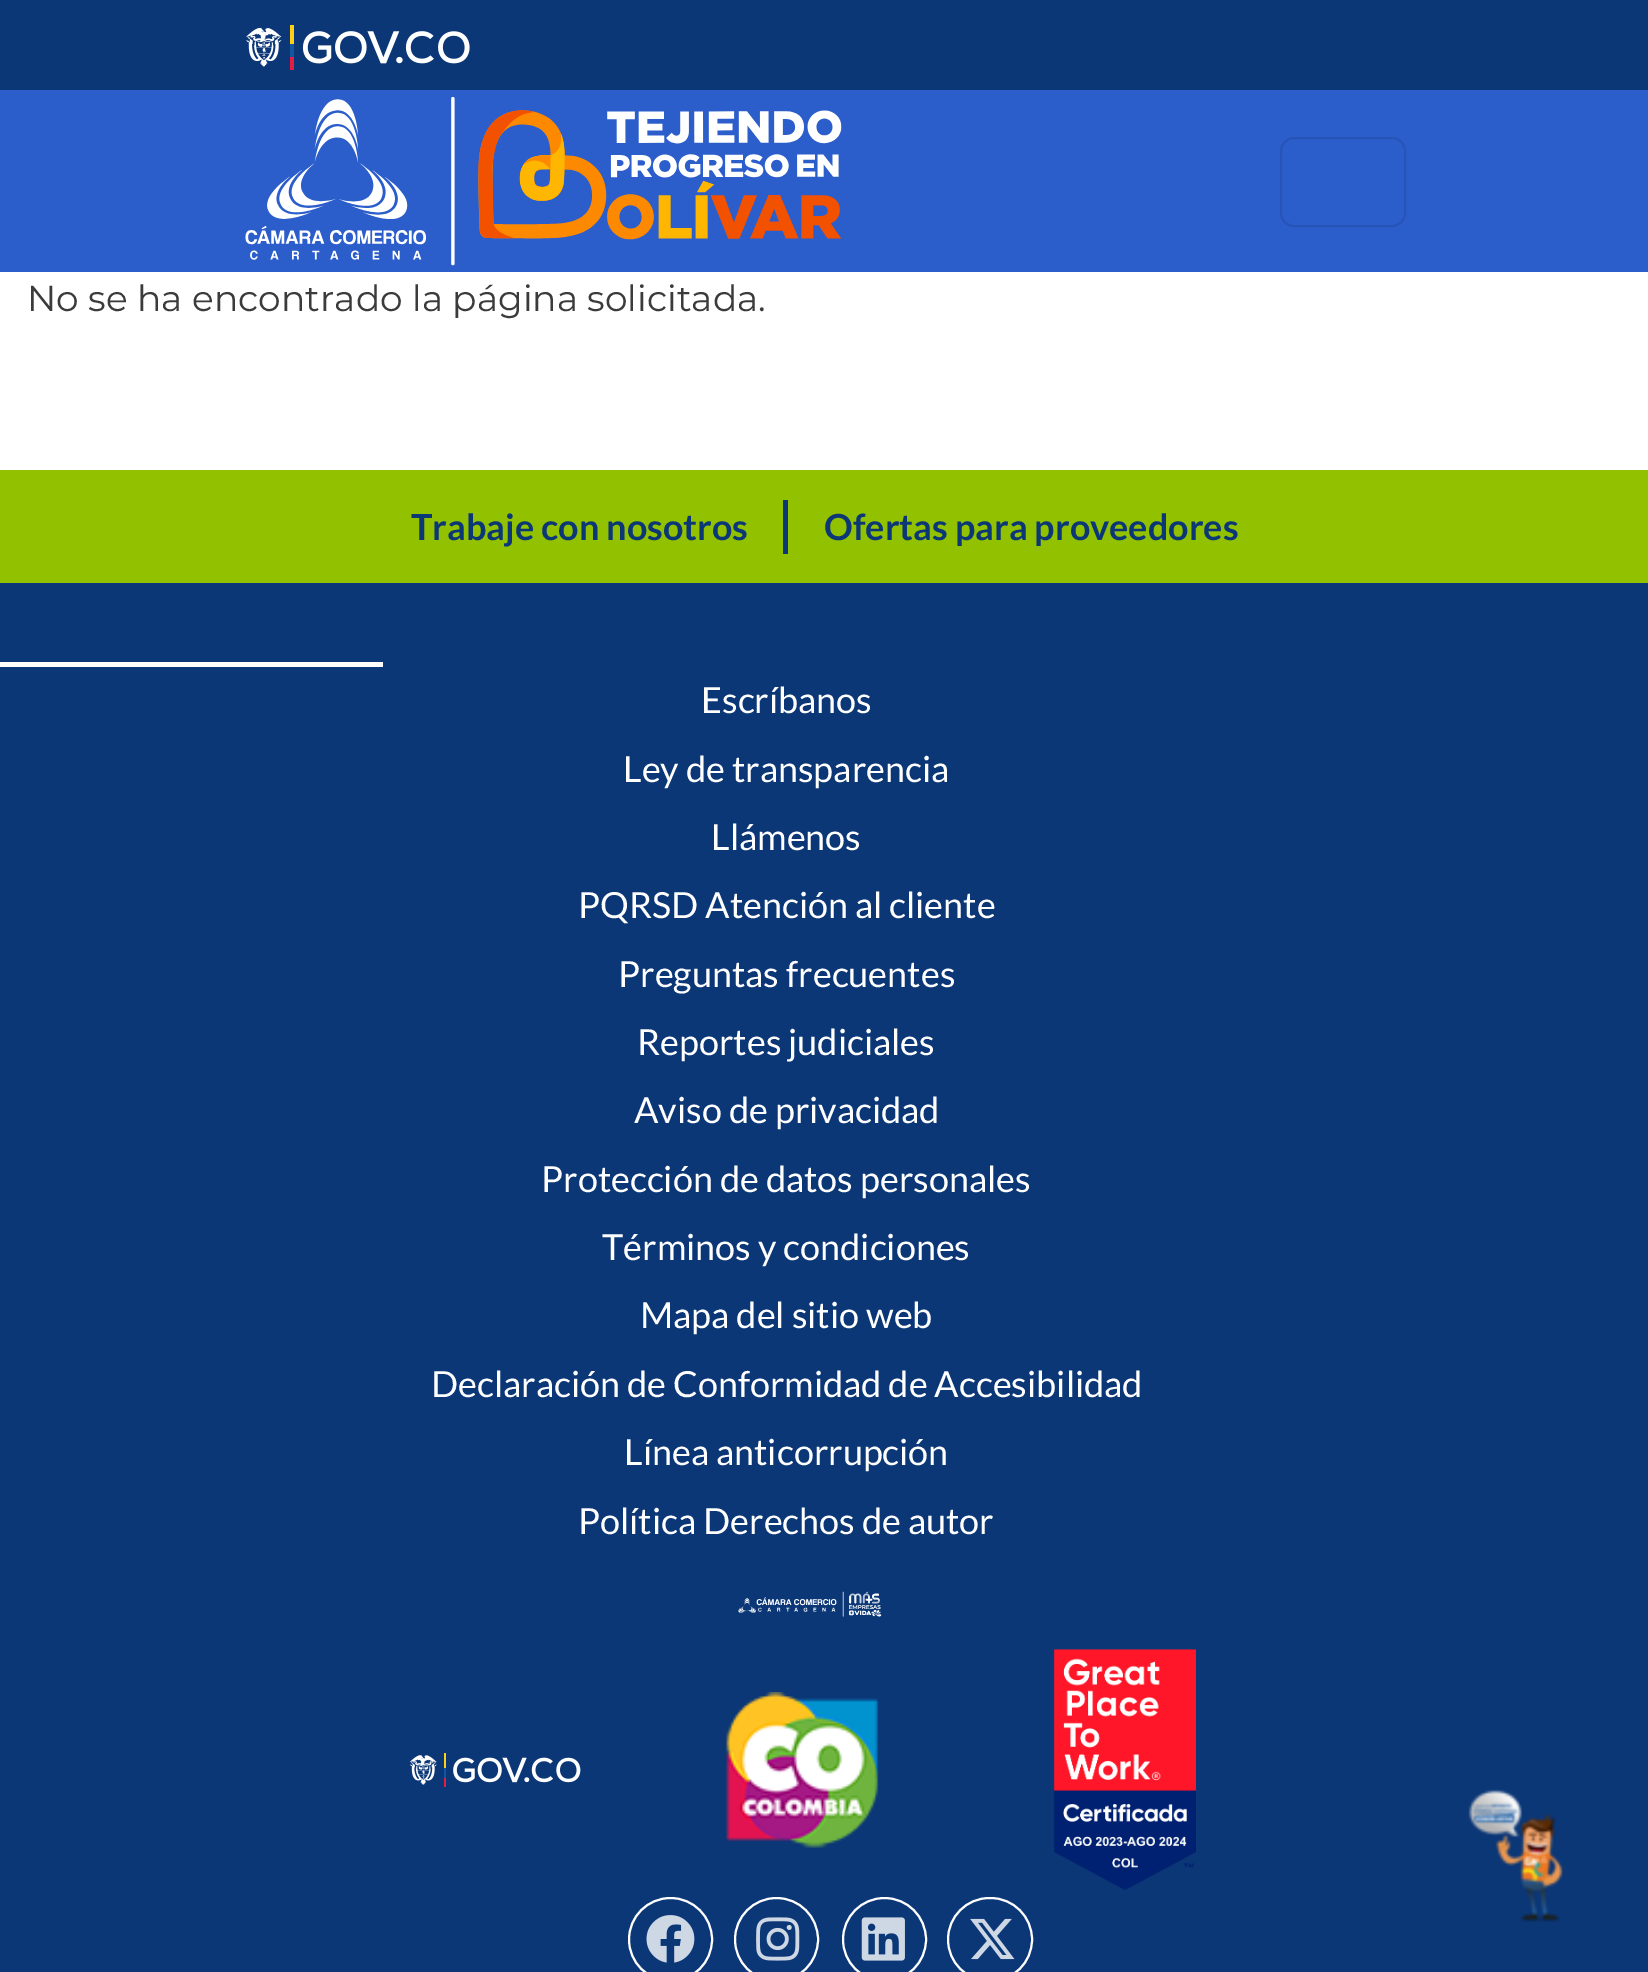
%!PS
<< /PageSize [1648 1972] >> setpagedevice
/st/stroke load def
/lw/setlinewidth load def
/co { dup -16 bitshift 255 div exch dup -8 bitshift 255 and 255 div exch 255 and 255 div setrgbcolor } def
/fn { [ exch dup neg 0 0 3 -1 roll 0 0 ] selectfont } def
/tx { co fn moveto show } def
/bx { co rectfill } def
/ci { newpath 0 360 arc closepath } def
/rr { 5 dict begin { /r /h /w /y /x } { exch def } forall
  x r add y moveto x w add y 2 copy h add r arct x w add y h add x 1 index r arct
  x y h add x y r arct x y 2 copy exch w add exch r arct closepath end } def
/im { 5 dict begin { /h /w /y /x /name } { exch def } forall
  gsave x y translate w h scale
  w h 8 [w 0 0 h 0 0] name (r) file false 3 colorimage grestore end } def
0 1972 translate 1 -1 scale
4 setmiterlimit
0 0 1648 1972 16#FFFFFF bx
0 0 1648 90 16#0B3777 bx
(media/1.raw) 246 25 224 45 im
0 90 1648 182 16#2B5DCB bx
(media/2.raw) 245 97 597 169 im
16#2754B7 co
2 lw
1281 138 124 88 13 rr st
0 470 1648 113 16#92C100 bx
783 500 5 54 16#0B3777 bx
0 583 1648 1389 16#0B3777 bx
0 662 383 5 16#FFFFFF bx
(media/3.raw) 738 1591 144 26 im
(media/4.raw) 410 1753 171 34 im
(media/5.raw) 726 1692 153 156 im
(media/6.raw) 1053 1649 143 241 im
670.5 1939.5 41.5 ci st
(media/7.raw) 646 1915 49 48 im
776.5 1939.5 41.5 ci st
(media/8.raw) 756 1917 44 44 im
884.5 1939.5 41.5 ci st
(media/9.raw) 861 1917 44 44 im
948 1898 84 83 41.5 rr st
(media/10.raw) 970 1918 45 42 im
(media/11.raw) 1468 1789 95 133 im
(No se ha encontrado la página solicitada.) 27 311 /Montserrat-Regular 36 16#3B3B3B tx
(Trabaje con nosotros) 411 540 /Lato-Bold 36 16#0B3777 tx
(Ofertas para proveedores) 824 540 /Lato-Bold 36 16#0B3777 tx
(Escríbanos) 701 713 /Lato-Regular 36 16#FFFFFF tx
(Ley de transparencia) 623 782 /Lato-Regular 36 16#FFFFFF tx
(Llámenos) 711 850 /Lato-Regular 36 16#FFFFFF tx
(PQRSD Atención al cliente) 578 918 /Lato-Regular 36 16#FFFFFF tx
(Preguntas frecuentes) 618 987 /Lato-Regular 36 16#FFFFFF tx
(Reportes judiciales) 637 1055 /Lato-Regular 36 16#FFFFFF tx
(Aviso de privacidad) 634 1123 /Lato-Regular 36 16#FFFFFF tx
(Protección de datos personales) 541 1192 /Lato-Regular 36 16#FFFFFF tx
(Términos y condiciones) 602 1260 /Lato-Regular 36 16#FFFFFF tx
(Mapa del sitio web) 640 1328 /Lato-Regular 36 16#FFFFFF tx
(Declaración de Conformidad de Accesibilidad) 431 1397 /Lato-Regular 36 16#FFFFFF tx
(Línea anticorrupción) 624 1465 /Lato-Regular 36 16#FFFFFF tx
(Política Derechos de autor) 578 1534 /Lato-Regular 36 16#FFFFFF tx
showpage
